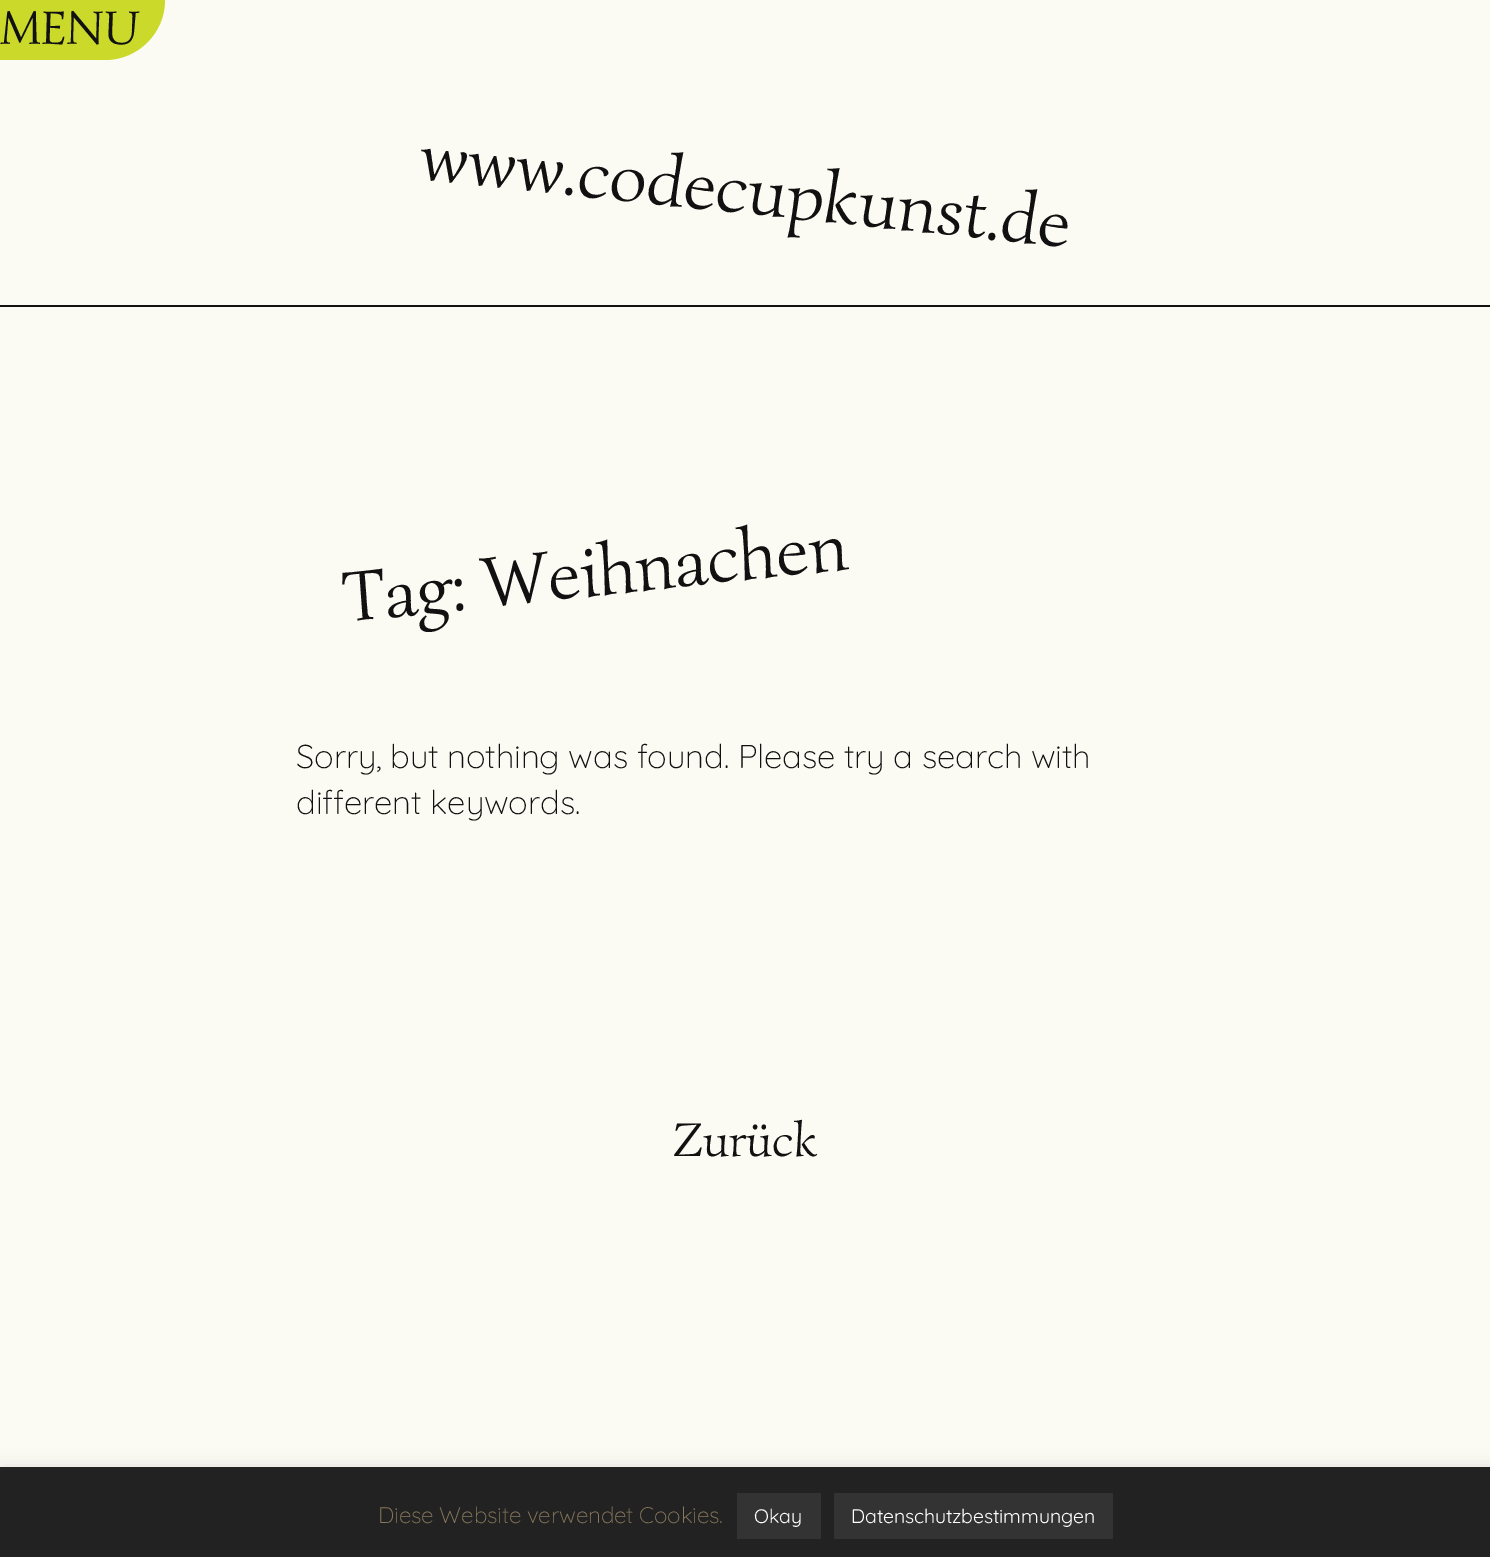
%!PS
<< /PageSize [1490 1557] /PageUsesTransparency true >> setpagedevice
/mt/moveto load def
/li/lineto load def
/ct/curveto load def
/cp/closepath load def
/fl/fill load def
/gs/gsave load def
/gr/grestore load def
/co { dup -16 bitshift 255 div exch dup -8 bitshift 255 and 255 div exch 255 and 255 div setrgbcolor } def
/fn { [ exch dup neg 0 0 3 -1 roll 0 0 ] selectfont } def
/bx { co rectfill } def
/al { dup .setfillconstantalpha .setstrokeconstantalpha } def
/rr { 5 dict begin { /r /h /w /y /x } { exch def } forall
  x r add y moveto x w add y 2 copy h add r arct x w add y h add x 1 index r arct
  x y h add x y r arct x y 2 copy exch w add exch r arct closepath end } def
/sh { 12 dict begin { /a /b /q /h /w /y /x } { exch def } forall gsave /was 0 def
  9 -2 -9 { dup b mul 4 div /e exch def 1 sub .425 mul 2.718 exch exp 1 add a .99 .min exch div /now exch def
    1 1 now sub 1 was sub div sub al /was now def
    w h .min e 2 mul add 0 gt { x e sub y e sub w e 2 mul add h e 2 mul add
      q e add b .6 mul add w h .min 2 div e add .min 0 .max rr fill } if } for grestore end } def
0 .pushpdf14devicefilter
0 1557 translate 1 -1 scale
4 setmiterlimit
0 0 1490 1557 16#FBFAF3 bx
16#CBD92B co
0 0 mt 165 0 li 165 33 138 60 105 60 ct 0 60 li cp fl
0 305 1490 2 16#111111 bx
16#ACABAB co
0 1466 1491 90 0 7.5 .3 sh
0 1467 1490 90 16#222222 bx
737 1493 84 46 16#333333 bx
834 1493 279 46 16#333333 bx
/Simonetta-Regular 48 fn
16#111111 co
0 44 mt -.15 0 (MENU) ashow
/Simonetta-Regular 72 fn
gs 418 179 translate 6 rotate 0 0 mt -.15 0 (www.codecupkunst.de) ashow gr
gs 345 622 translate -6 rotate 0 0 mt -.15 0 (Tag:) ashow gr
gs 484 607 translate -6 rotate 0 0 mt -.15 0 (Weihnachen) ashow gr
/Quicksand-Light 33 fn
296 768 mt -.15 0 (Sorry, but nothing was found. Please try a search with) ashow
296 814 mt -.15 0 (different keywords.) ashow
/Simonetta-Regular 48 fn
673 1156 mt -.15 0 (Zurück) ashow
/Quicksand-Light 22.5 fn
16#8A795D co
378 1523 mt -.15 0 (Diese Website verwendet Cookies.) ashow
/Quicksand-Regular 19.5 fn
16#FFFFFF co
754 1523 mt -.15 0 (Okay) ashow
851 1523 mt -.15 0 (Datenschutzbestimmungen) ashow
.poppdf14devicefilter showpage
